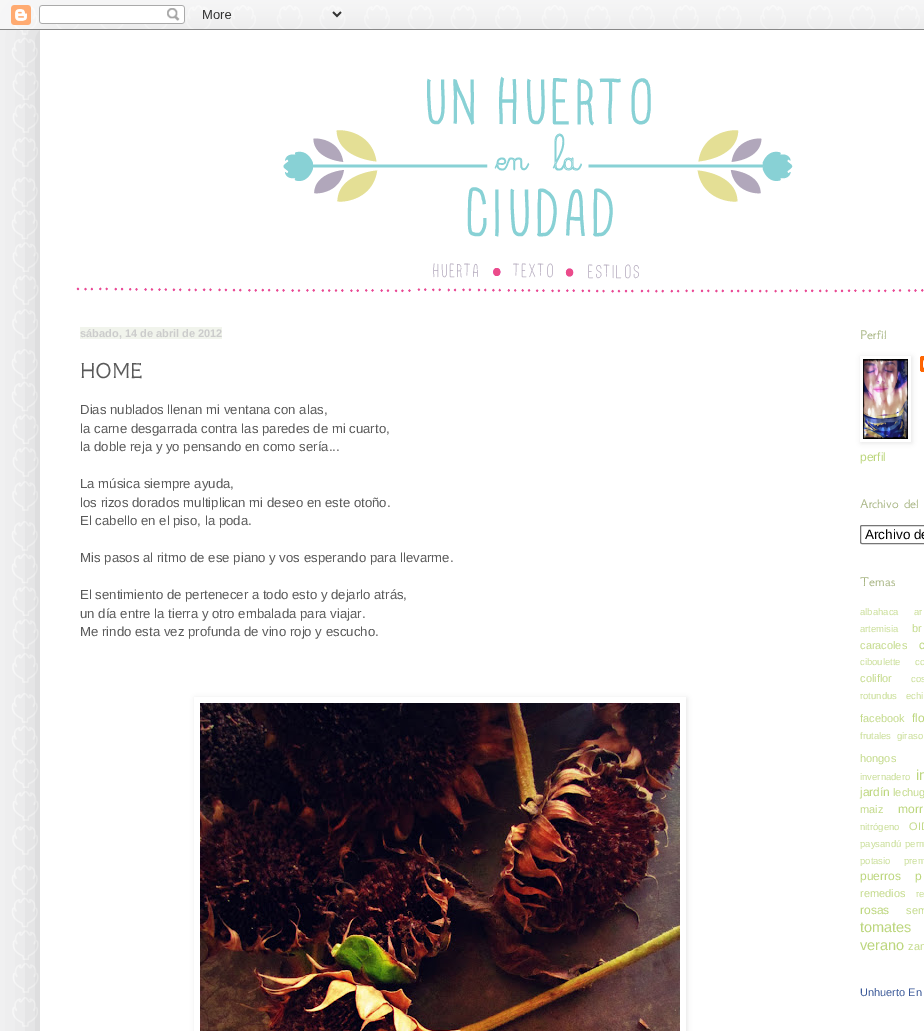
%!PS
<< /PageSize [924 1031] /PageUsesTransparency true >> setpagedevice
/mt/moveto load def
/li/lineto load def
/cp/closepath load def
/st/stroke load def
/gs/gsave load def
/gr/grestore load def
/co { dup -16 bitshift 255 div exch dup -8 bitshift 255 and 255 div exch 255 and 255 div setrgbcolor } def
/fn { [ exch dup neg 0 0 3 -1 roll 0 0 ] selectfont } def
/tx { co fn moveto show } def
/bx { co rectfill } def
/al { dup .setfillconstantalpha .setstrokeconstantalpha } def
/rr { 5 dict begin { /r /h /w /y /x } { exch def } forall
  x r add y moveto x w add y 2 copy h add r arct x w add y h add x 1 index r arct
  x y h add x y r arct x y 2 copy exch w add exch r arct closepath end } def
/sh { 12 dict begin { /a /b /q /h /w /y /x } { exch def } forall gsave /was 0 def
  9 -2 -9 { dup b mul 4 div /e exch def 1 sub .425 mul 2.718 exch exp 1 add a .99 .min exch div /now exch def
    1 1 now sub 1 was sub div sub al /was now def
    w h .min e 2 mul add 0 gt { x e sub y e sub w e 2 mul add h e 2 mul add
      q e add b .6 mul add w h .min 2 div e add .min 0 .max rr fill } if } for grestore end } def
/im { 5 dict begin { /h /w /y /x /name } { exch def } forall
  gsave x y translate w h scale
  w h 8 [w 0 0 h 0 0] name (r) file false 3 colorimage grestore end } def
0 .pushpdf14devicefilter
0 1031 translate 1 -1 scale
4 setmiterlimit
0 0 924 1031 16#FFFFFF bx
(media/1.raw) 0 0 924 1031 im
16#000000 co
40 30 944 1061 0 20 .15 sh
(media/2.raw) 0 0 924 30 im
40 30 884 1001 16#FFFFFF bx
(media/3.raw) 76 76 848 217 im
80 327 142 12 16#F1F4EC bx
gs
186 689 mt 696 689 li 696 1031 li 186 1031 li cp 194 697 mt 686 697 li 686 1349 li 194 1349 li cp eoclip newpath
16#000000 co
195 698 492 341 0 2.5 .1 sh
gr
(media/4.raw) 200 703 480 328 im
(media/6.raw) 920 356 4 16 im
gs
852 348 mt 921 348 li 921 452 li 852 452 li cp 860 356 mt 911 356 li 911 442 li 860 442 li cp eoclip newpath
16#000000 co
861 357 51 86 0 2.5 .1 sh
gr
(media/5.raw) 863 359 45 80 im
16#767676 co
860.5 525.5 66 18 1.5 rr st
(sábado, 14 de abril de 2012) 80 337 /LiberationSans-Bold 11 16#CCCCCC tx
(HOME) 80 378 /GFSNeohellenic-Regular 24 16#5A5A5A tx
(Dias nublados llenan mi ventana con alas,) 80 414 /LiberationSans-Regular 13.2 16#5A5A5A tx
(la carne desgarrada contra las paredes de mi cuarto,) 80 433 /LiberationSans-Regular 13.2 16#5A5A5A tx
(la doble reja y yo pensando en como sería...) 80 451 /LiberationSans-Regular 13.2 16#5A5A5A tx
(La música siempre ayuda,) 80 488 /LiberationSans-Regular 13.2 16#5A5A5A tx
(los rizos dorados multiplican mi deseo en este otoño.) 80 507 /LiberationSans-Regular 13.2 16#5A5A5A tx
(El cabello en el piso, la poda.) 80 525 /LiberationSans-Regular 13.2 16#5A5A5A tx
(Mis pasos al ritmo de ese piano y vos esperando para llevarme.) 80 562 /LiberationSans-Regular 13.2 16#5A5A5A tx
(El sentimiento de pertenecer a todo esto y dejarlo atrás,) 80 599 /LiberationSans-Regular 13.2 16#5A5A5A tx
(un día entre la tierra y otro embalada para viajar.) 80 618 /LiberationSans-Regular 13.2 16#5A5A5A tx
(Me rindo esta vez profunda de vino rojo y escucho.) 80 636 /LiberationSans-Regular 13.2 16#5A5A5A tx
(Perfil) 860 339 /GFSNeohellenic-Regular 14 16#A6B481 tx
(perfil) 860 461 /LiberationSans-Regular 12 16#BCD67D tx
(Archivo del) 860 508 /GFSNeohellenic-Regular 14 16#A6B481 tx
(Archivo de) 865 539 /LiberationSans-Regular 13.5 16#000000 tx
(Temas) 860 586 /GFSNeohellenic-Regular 14 16#A6B481 tx
(albahaca) 860 615 /LiberationSans-Regular 9.5 16#C9DE97 tx
(ar) 914 615 /LiberationSans-Regular 9.5 16#C9DE97 tx
(artemisia) 860 632 /LiberationSans-Regular 9.5 16#C9DE97 tx
(br) 912 632 /LiberationSans-Regular 11 16#C3DA8A tx
(caracoles) 860 649 /LiberationSans-Regular 11 16#C3DA8A tx
(c) 919 649 /LiberationSans-Regular 12 16#BCD67D tx
(ciboulette) 860 665 /LiberationSans-Regular 9.5 16#C9DE97 tx
915 665 mt 11 0 32 (co) widthshow
(coliflor) 860 682 /LiberationSans-Regular 11 16#C3DA8A tx
(cos) 911 682 /LiberationSans-Regular 9.5 16#C9DE97 tx
(rotundus) 860 699 /LiberationSans-Regular 9.5 16#C9DE97 tx
(echi) 906 699 /LiberationSans-Regular 9.5 16#C9DE97 tx
(facebook) 860 722 /LiberationSans-Regular 11 16#C3DA8A tx
(flo) 912 722 /LiberationSans-Regular 12 16#BCD67D tx
(frutales) 860 739 /LiberationSans-Regular 9.5 16#C9DE97 tx
(giraso) 897 739 /LiberationSans-Regular 9.5 16#C9DE97 tx
(hongos) 860 762 /LiberationSans-Regular 11 16#C3DA8A tx
(invernadero) 860 780 /LiberationSans-Regular 9.5 16#C9DE97 tx
(in) 916 780 /LiberationSans-Regular 14.5 16#BCD67D tx
(jardín) 860 796 /LiberationSans-Regular 12 16#BCD67D tx
(lechug) 893 796 /LiberationSans-Regular 11 16#C3DA8A tx
(maiz) 860 813 /LiberationSans-Regular 11 16#C3DA8A tx
(morr) 898 813 /LiberationSans-Regular 12 16#BCD67D tx
(nitrógeno) 860 830 /LiberationSans-Regular 9.5 16#C9DE97 tx
(OID) 909 830 /LiberationSans-Regular 11 16#C3DA8A tx
(paysandú) 860 847 /LiberationSans-Regular 9.5 16#C9DE97 tx
(perm) 905 847 /LiberationSans-Regular 9.5 16#C9DE97 tx
(potasio) 860 864 /LiberationSans-Regular 9.5 16#C9DE97 tx
(prem) 904 864 /LiberationSans-Regular 9.5 16#C9DE97 tx
(puerros) 860 880 /LiberationSans-Regular 12 16#BCD67D tx
(p) 915 880 /LiberationSans-Regular 12 16#BCD67D tx
(remedios) 860 897 /LiberationSans-Regular 11 16#C3DA8A tx
(re) 916 897 /LiberationSans-Regular 9.5 16#C9DE97 tx
(rosas) 860 914 /LiberationSans-Regular 12 16#BCD67D tx
(sem) 906 914 /LiberationSans-Regular 11 16#C3DA8A tx
(tomates) 860 932 /LiberationSans-Regular 14.5 16#BCD67D tx
(verano) 860 950 /LiberationSans-Regular 14.5 16#BCD67D tx
(zan) 908 950 /LiberationSans-Regular 11 16#C3DA8A tx
(Unhuerto En) 860 996 /LiberationSans-Regular 11 16#3B5998 tx
.poppdf14devicefilter showpage
